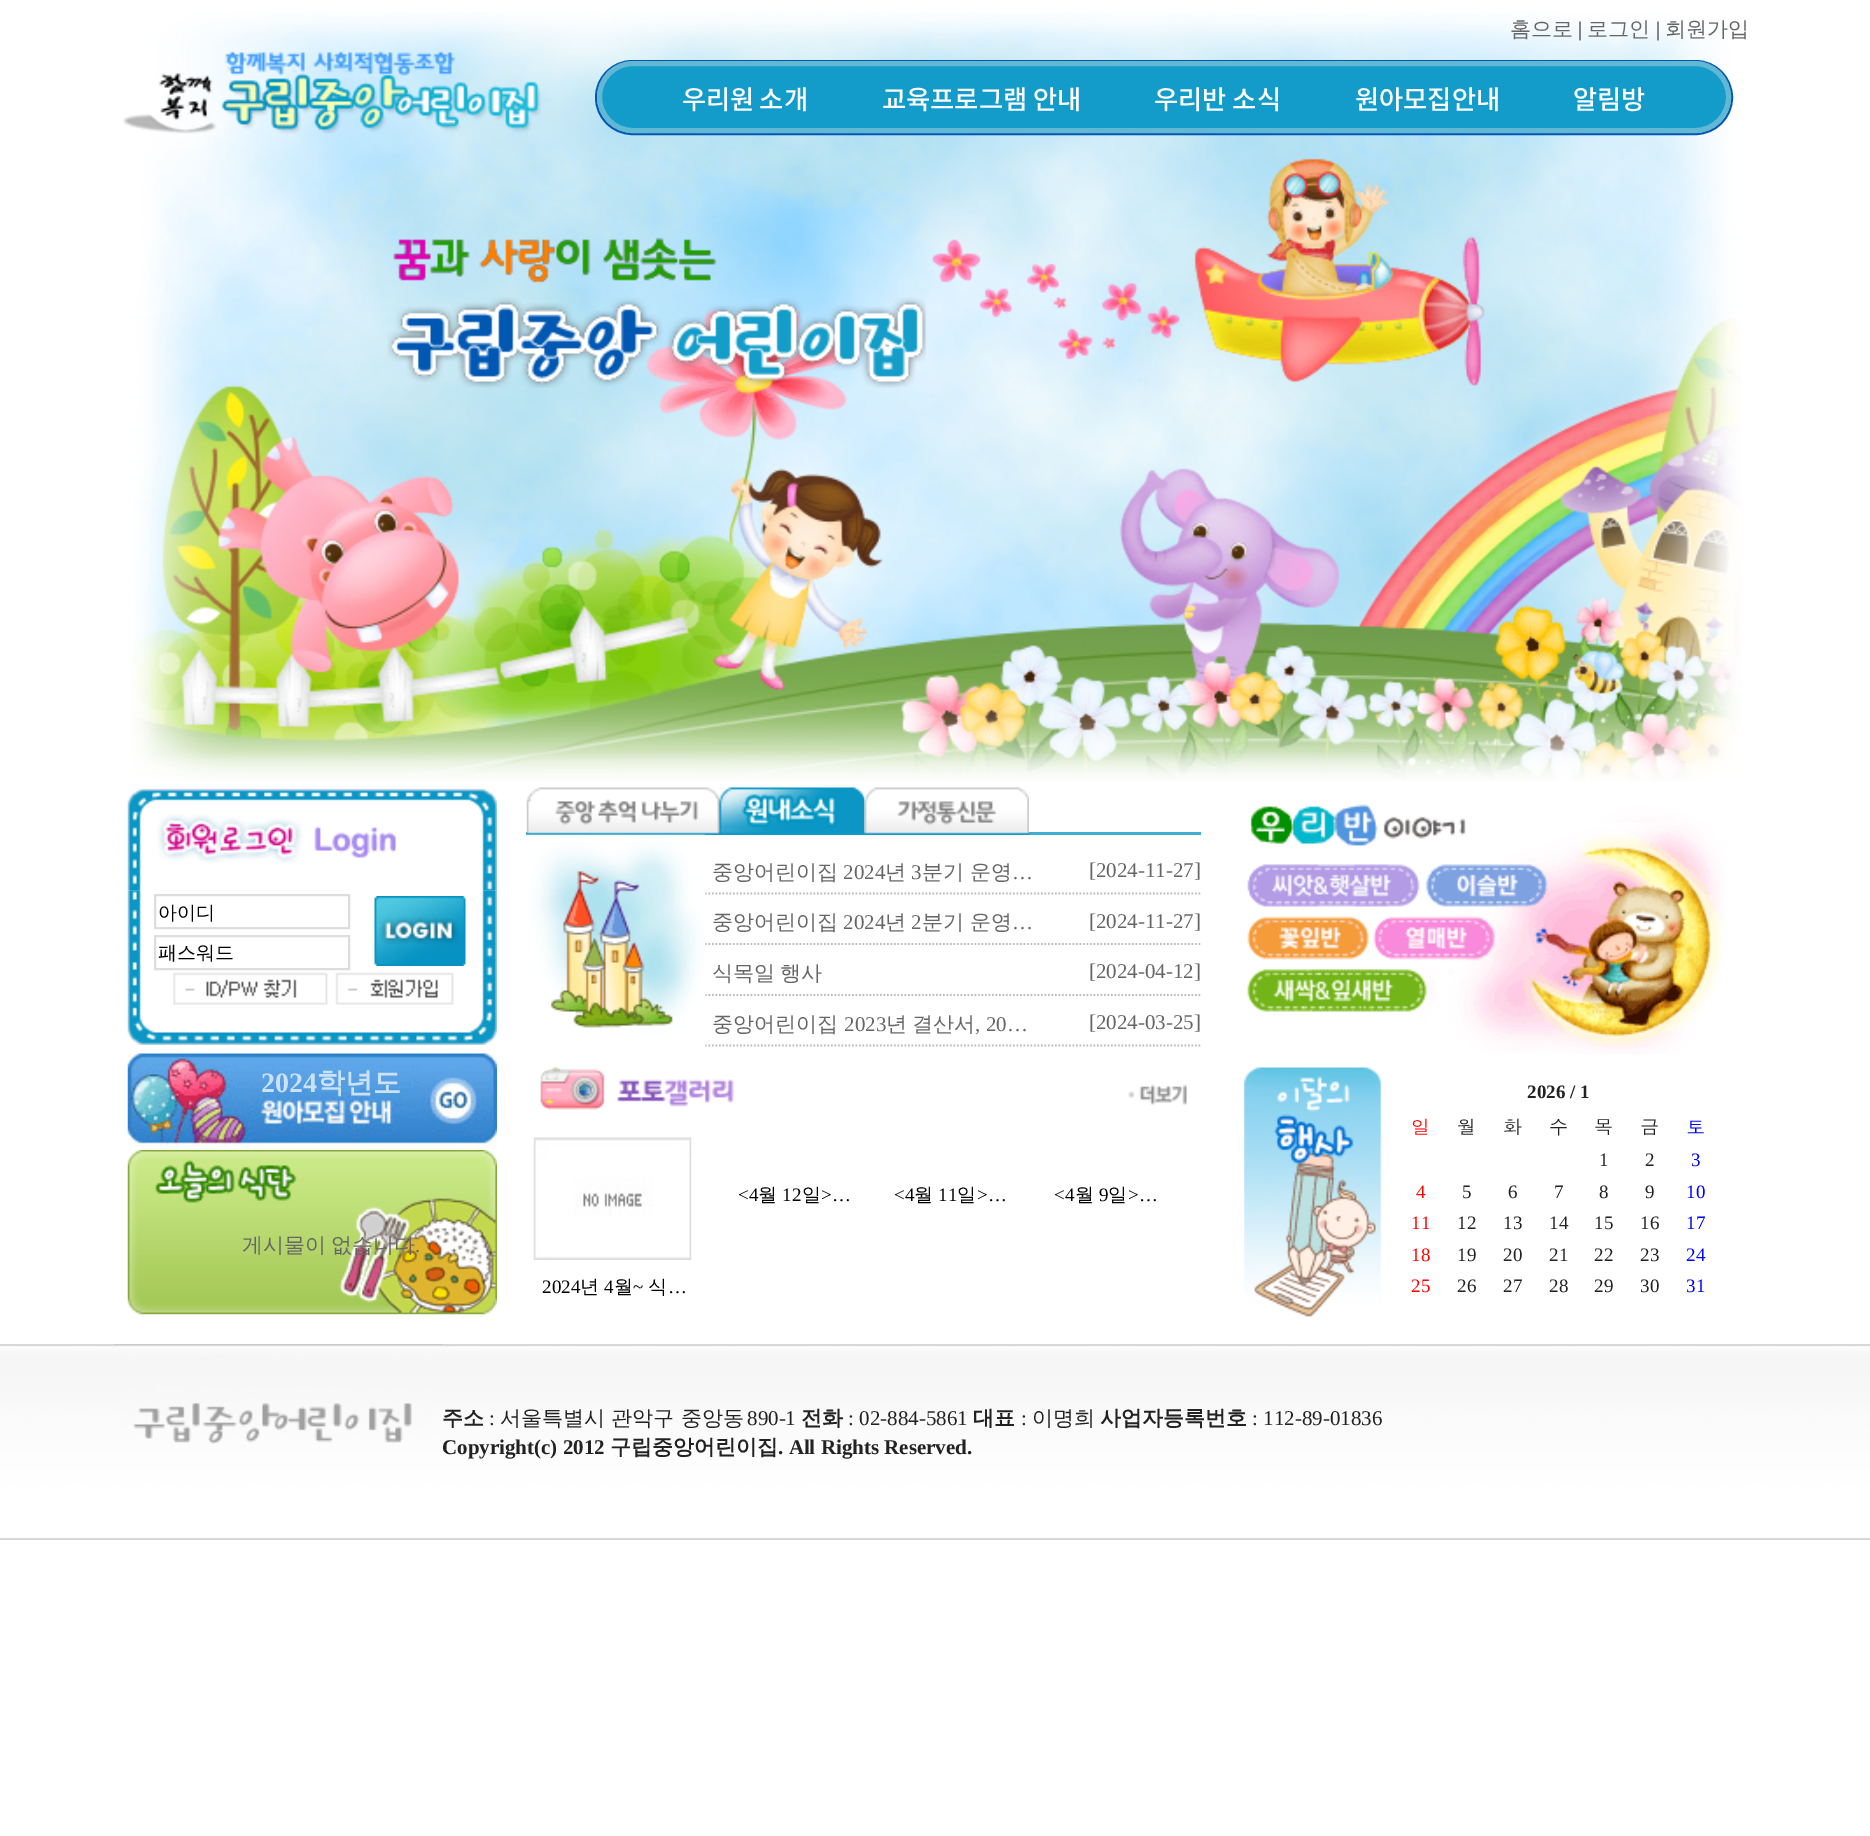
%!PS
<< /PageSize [1870 1836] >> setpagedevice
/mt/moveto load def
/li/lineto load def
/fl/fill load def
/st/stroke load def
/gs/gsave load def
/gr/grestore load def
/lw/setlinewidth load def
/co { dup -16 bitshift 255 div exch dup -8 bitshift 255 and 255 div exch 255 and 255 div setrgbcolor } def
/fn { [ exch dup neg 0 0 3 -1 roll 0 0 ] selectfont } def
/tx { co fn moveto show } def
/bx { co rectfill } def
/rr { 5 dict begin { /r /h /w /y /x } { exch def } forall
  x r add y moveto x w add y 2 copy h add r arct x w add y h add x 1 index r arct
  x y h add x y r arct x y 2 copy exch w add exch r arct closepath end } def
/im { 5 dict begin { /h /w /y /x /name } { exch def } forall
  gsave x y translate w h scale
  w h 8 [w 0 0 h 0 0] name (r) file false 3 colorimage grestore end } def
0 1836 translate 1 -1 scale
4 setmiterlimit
0 0 1870 1836 16#FFFFFF bx
(media/1.raw) 132 12 1609 769 im
(media/2.raw) 123 50 418 84 im
16#0157B1 co
2 lw
596 61 1136 73 36.5 rr st
16#139CC9 co
599.5 63.5 1129 67 33.5 rr gs fl gr
16#61B8D5 co
5 lw
st
(media/3.raw) 387 237 539 151 im
(media/5.raw) 127 890 370 155 im
(media/4.raw) 127 788 370 103 im
16#DDDDDD co
2 lw
155 895 194 33 rectstroke
155 936 194 33 rectstroke
(media/6.raw) 374 896 92 70 im
(media/7.raw) 173 972 155 33 im
(media/8.raw) 335 972 119 33 im
(media/10.raw) 127 1149 370 166 im
(media/9.raw) 127 1053 370 97 im
526 832 675 3 16#3FACD1 bx
(media/11.raw) 526 787 194 48 im
(media/12.raw) 719 787 146 48 im
(media/13.raw) 864 787 165 48 im
16#BCBCBC co
1.8 lw
[1.75 1.75] 0 setdash
705 893.5 mt 1200.5 893.5 li st
705 944 mt 1200.5 944 li st
705 995 mt 1200.5 995 li st
705 1045.5 mt 1200.5 1045.5 li st
(media/14.raw) 526 834 180 213 im
(media/15.raw) 540 1067 647 43 im
(media/16.raw) 533 1137 159 123 im
(media/17.raw) 1247 804 478 250 im
(media/18.raw) 1244 1067 138 250 im
(media/19.raw) 0 1344 1870 196 im
(media/20.raw) 114 1344 329 100 im
(홈으로) 1510 36 /WenQuanYiZenHei-Medium 21 16#666666 tx
(|) 1578 36 /LiberationSerif-Regular 21 16#222222 tx
(로그인) 1587 36 /WenQuanYiZenHei-Medium 21 16#666666 tx
(|) 1656 36 /LiberationSerif-Regular 21 16#222222 tx
(회원가입) 1665 36 /WenQuanYiZenHei-Medium 21 16#666666 tx
/NotoSansKR-Medium 26.25 fn
16#FFFFFF co
682 109 mt -1 0 32 (우리원 소개) widthshow
(교육프로그램 안내) 882 109 /NotoSansKR-Medium 26.25 16#FFFFFF tx
(우리반 소식) 1154 109 /NotoSansKR-Medium 26.25 16#FFFFFF tx
(원아모집안내) 1355 109 /NotoSansKR-Medium 26.25 16#FFFFFF tx
(알림방) 1573 109 /NotoSansKR-Medium 26.25 16#FFFFFF tx
(아이디) 158 919 /WenQuanYiZenHei-Medium 19 16#000000 tx
(패스워드) 158 959 /WenQuanYiZenHei-Medium 19 16#000000 tx
(2024) 261 1092 /LiberationSerif-Bold 28 16#CAE1F6 tx
(학년도) 317 1092 /WenQuanYiZenHei-Bold 28 16#CAE1F6 tx
/WenQuanYiZenHei-Medium 21 fn
16#666666 co
242 1252 mt -1 0 32 (게시물이 없습니다) widthshow
(.) 415 1252 /LiberationSerif-Regular 21 16#666666 tx
(중앙어린이집) 712 879 /WenQuanYiZenHei-Medium 21 16#666666 tx
(2024) 843 879 /LiberationSerif-Regular 21 16#666666 tx
(년) 885 879 /WenQuanYiZenHei-Medium 21 16#666666 tx
(3) 911 879 /LiberationSerif-Regular 21 16#666666 tx
(분기 운영) 922 879 /WenQuanYiZenHei-Medium 21 16#666666 tx
(…) 1012 879 /LiberationSerif-Regular 21 16#666666 tx
([2024-11-27]) 1089 877 /LiberationSerif-Regular 21 16#666666 tx
(중앙어린이집) 712 929 /WenQuanYiZenHei-Medium 21 16#666666 tx
(2024) 843 929 /LiberationSerif-Regular 21 16#666666 tx
(년) 885 929 /WenQuanYiZenHei-Medium 21 16#666666 tx
(2) 911 929 /LiberationSerif-Regular 21 16#666666 tx
(분기 운영) 922 929 /WenQuanYiZenHei-Medium 21 16#666666 tx
(…) 1012 929 /LiberationSerif-Regular 21 16#666666 tx
([2024-11-27]) 1089 928 /LiberationSerif-Regular 21 16#666666 tx
/WenQuanYiZenHei-Medium 21 fn
712 980 mt -1 0 32 (식목일 행사) widthshow
([2024-04-12]) 1089 978 /LiberationSerif-Regular 21 16#666666 tx
(중앙어린이집) 712 1031 /WenQuanYiZenHei-Medium 21 16#666666 tx
(2023) 844 1031 /LiberationSerif-Regular 21 16#666666 tx
(년) 886 1031 /WenQuanYiZenHei-Medium 21 16#666666 tx
(결산서) 912 1031 /WenQuanYiZenHei-Medium 21 16#666666 tx
(, 20…) 975 1031 /LiberationSerif-Regular 21 16#666666 tx
([2024-03-25]) 1089 1029 /LiberationSerif-Regular 21 16#666666 tx
(<4) 738 1201 /LiberationSerif-Regular 19 16#000000 tx
(월) 758 1201 /WenQuanYiZenHei-Medium 19 16#000000 tx
(12) 782 1201 /LiberationSerif-Regular 19 16#000000 tx
(일) 802 1201 /WenQuanYiZenHei-Medium 19 16#000000 tx
(>…) 821 1201 /LiberationSerif-Regular 19 16#000000 tx
(<4) 894 1201 /LiberationSerif-Regular 19 16#000000 tx
(월) 914 1201 /WenQuanYiZenHei-Medium 19 16#000000 tx
(11) 938 1201 /LiberationSerif-Regular 19 16#000000 tx
(일) 957 1201 /WenQuanYiZenHei-Medium 19 16#000000 tx
(>…) 977 1201 /LiberationSerif-Regular 19 16#000000 tx
(<4) 1054 1201 /LiberationSerif-Regular 19 16#000000 tx
(월) 1075 1201 /WenQuanYiZenHei-Medium 19 16#000000 tx
(9) 1099 1201 /LiberationSerif-Regular 19 16#000000 tx
(일) 1108 1201 /WenQuanYiZenHei-Medium 19 16#000000 tx
(>…) 1128 1201 /LiberationSerif-Regular 19 16#000000 tx
(2024) 542 1293 /LiberationSerif-Regular 19 16#000000 tx
(년) 580 1293 /WenQuanYiZenHei-Medium 19 16#000000 tx
(4) 604 1293 /LiberationSerif-Regular 19 16#000000 tx
(월) 614 1293 /WenQuanYiZenHei-Medium 19 16#000000 tx
(~) 633 1293 /LiberationSerif-Regular 19 16#000000 tx
(식) 648 1293 /WenQuanYiZenHei-Medium 19 16#000000 tx
(…) 668 1293 /LiberationSerif-Regular 19 16#000000 tx
(2026 / 1) 1527 1098 /LiberationSerif-Bold 19 16#222222 tx
(일) 1411 1134 /Dotum-Regular 19 16#FF0000 tx
(월) 1457 1134 /Dotum-Regular 19 16#222222 tx
(화) 1503 1134 /Dotum-Regular 19 16#222222 tx
(수) 1549 1134 /Dotum-Regular 19 16#222222 tx
(목) 1594 1134 /Dotum-Regular 19 16#222222 tx
(금) 1640 1134 /Dotum-Regular 19 16#222222 tx
(토) 1686 1134 /Dotum-Regular 19 16#0000FF tx
(1) 1599 1166 /LiberationSerif-Regular 19 16#222222 tx
(2) 1645 1166 /LiberationSerif-Regular 19 16#222222 tx
(3) 1691 1166 /LiberationSerif-Regular 19 16#0000FF tx
(4) 1416 1198 /LiberationSerif-Regular 19 16#FF0000 tx
(5) 1462 1198 /LiberationSerif-Regular 19 16#222222 tx
(6) 1508 1198 /LiberationSerif-Regular 19 16#222222 tx
(7) 1554 1198 /LiberationSerif-Regular 19 16#222222 tx
(8) 1599 1198 /LiberationSerif-Regular 19 16#222222 tx
(9) 1645 1198 /LiberationSerif-Regular 19 16#222222 tx
(10) 1686 1198 /LiberationSerif-Regular 19 16#0000FF tx
(11) 1411 1229 /LiberationSerif-Regular 19 16#FF0000 tx
(12) 1457 1229 /LiberationSerif-Regular 19 16#222222 tx
(13) 1503 1229 /LiberationSerif-Regular 19 16#222222 tx
(14) 1549 1229 /LiberationSerif-Regular 19 16#222222 tx
(15) 1594 1229 /LiberationSerif-Regular 19 16#222222 tx
(16) 1640 1229 /LiberationSerif-Regular 19 16#222222 tx
(17) 1686 1229 /LiberationSerif-Regular 19 16#0000FF tx
(18) 1411 1261 /LiberationSerif-Regular 19 16#FF0000 tx
(19) 1457 1261 /LiberationSerif-Regular 19 16#222222 tx
(20) 1503 1261 /LiberationSerif-Regular 19 16#222222 tx
(21) 1549 1261 /LiberationSerif-Regular 19 16#222222 tx
(22) 1594 1261 /LiberationSerif-Regular 19 16#222222 tx
(23) 1640 1261 /LiberationSerif-Regular 19 16#222222 tx
(24) 1686 1261 /LiberationSerif-Regular 19 16#0000FF tx
(25) 1411 1292 /LiberationSerif-Regular 19 16#FF0000 tx
(26) 1457 1292 /LiberationSerif-Regular 19 16#222222 tx
(27) 1503 1292 /LiberationSerif-Regular 19 16#222222 tx
(28) 1549 1292 /LiberationSerif-Regular 19 16#222222 tx
(29) 1594 1292 /LiberationSerif-Regular 19 16#222222 tx
(30) 1640 1292 /LiberationSerif-Regular 19 16#222222 tx
(31) 1686 1292 /LiberationSerif-Regular 19 16#0000FF tx
(주소) 442 1425 /WenQuanYiZenHei-Bold 21 16#222222 tx
(:) 489 1425 /LiberationSerif-Regular 21 16#222222 tx
(서울특별시 관악구 중앙동) 500 1425 /WenQuanYiZenHei-Medium 21 16#222222 tx
(890-1) 747 1425 /LiberationSerif-Regular 21 16#222222 tx
(전화) 801 1425 /WenQuanYiZenHei-Bold 21 16#222222 tx
(: 02-884-5861) 848 1425 /LiberationSerif-Regular 21 16#222222 tx
(대표) 973 1425 /WenQuanYiZenHei-Bold 21 16#222222 tx
(:) 1021 1425 /LiberationSerif-Regular 21 16#222222 tx
(이명희) 1032 1425 /WenQuanYiZenHei-Medium 21 16#222222 tx
(사업자등록번호) 1100 1425 /WenQuanYiZenHei-Bold 21 16#222222 tx
(: 112-89-01836) 1252 1425 /LiberationSerif-Regular 21 16#222222 tx
(Copyright\(c\) 2012) 442 1454 /LiberationSerif-Bold 21 16#222222 tx
(구립중앙어린이집) 610 1454 /WenQuanYiZenHei-Bold 21 16#222222 tx
(. All Rights Reserved.) 778 1454 /LiberationSerif-Bold 21 16#222222 tx
showpage
